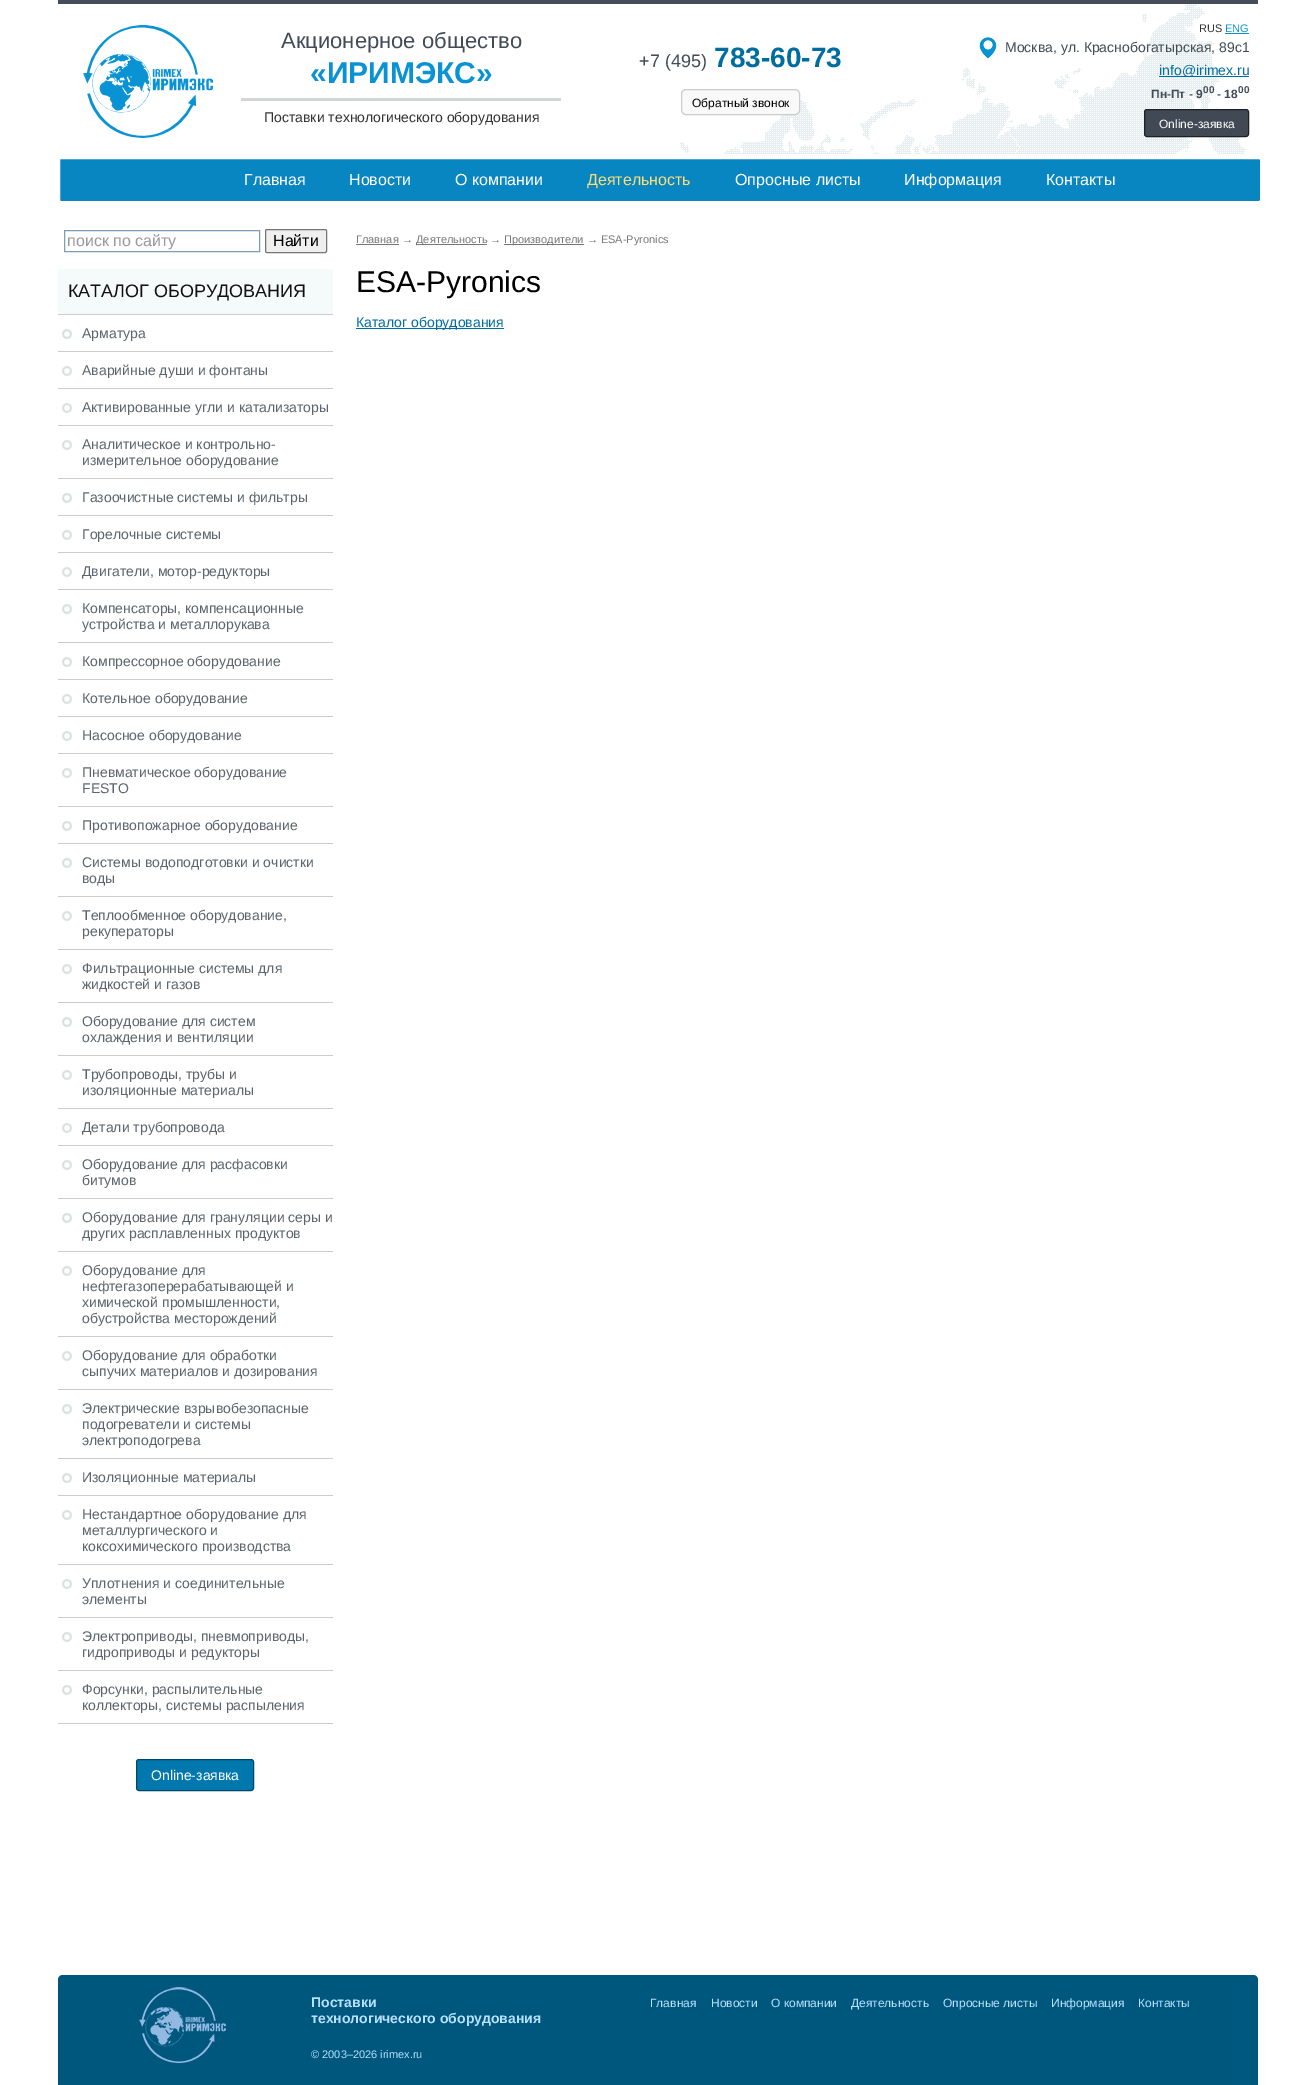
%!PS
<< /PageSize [1315 2085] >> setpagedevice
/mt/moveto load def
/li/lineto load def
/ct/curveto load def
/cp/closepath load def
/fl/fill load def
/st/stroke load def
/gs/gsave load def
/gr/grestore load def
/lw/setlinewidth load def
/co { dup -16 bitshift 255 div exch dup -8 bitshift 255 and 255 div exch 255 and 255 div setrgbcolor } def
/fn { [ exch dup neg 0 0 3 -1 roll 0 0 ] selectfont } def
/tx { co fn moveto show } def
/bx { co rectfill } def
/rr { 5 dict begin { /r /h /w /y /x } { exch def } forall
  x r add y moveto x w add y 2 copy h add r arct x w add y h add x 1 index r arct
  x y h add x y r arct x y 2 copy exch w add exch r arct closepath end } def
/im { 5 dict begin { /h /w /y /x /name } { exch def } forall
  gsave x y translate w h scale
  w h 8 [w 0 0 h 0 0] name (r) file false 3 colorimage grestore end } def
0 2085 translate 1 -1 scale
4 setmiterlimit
0 0 1315 2085 16#FFFFFF bx
58 0 1200 4 16#454D58 bx
(media/1.raw) 679 4 571 150 im
(media/2.raw) 83 25 130 113 im
241 98 320 3 16#D1D6D8 bx
16#F9F9F9 co
681.5 89.5 118 25 4.5 rr gs fl gr
16#CCCCCC co
st
1225 33 24 1 16#0993D4 bx
(media/3.raw) 979 37 18 22 im
1159 76 90 1 16#006DA1 bx
16#404954 co
1144.5 109.5 104 27 2.5 rr gs fl gr
16#1D2126 co
st
16#0886C1 co
59 158 1202 44 2 rr gs fl gr
16#FFFFFF co
2 lw
st
16#7F9DB9 co
1 lw
64.5 230.5 195 21 rectstroke
16#EFEFEF co
265.5 229.5 61 23 1.5 rr gs fl gr
16#767676 co
st
58 269 275 45 16#F5FBFB bx
58 314 275 1 16#CCCCCC bx
(media/4.raw) 62 329 10 10 im
58 351 275 1 16#CCCCCC bx
(media/4.raw) 62 366 10 10 im
58 388 275 1 16#CCCCCC bx
(media/4.raw) 62 403 10 10 im
58 425 275 1 16#CCCCCC bx
(media/4.raw) 62 440 10 10 im
58 478 275 1 16#CCCCCC bx
(media/4.raw) 62 493 10 10 im
58 515 275 1 16#CCCCCC bx
(media/4.raw) 62 530 10 10 im
58 552 275 1 16#CCCCCC bx
(media/4.raw) 62 567 10 10 im
58 589 275 1 16#CCCCCC bx
(media/4.raw) 62 604 10 10 im
58 642 275 1 16#CCCCCC bx
(media/4.raw) 62 657 10 10 im
58 679 275 1 16#CCCCCC bx
(media/4.raw) 62 694 10 10 im
58 716 275 1 16#CCCCCC bx
(media/4.raw) 62 731 10 10 im
58 753 275 1 16#CCCCCC bx
(media/4.raw) 62 768 10 10 im
58 806 275 1 16#CCCCCC bx
(media/4.raw) 62 821 10 10 im
58 843 275 1 16#CCCCCC bx
(media/4.raw) 62 858 10 10 im
58 896 275 1 16#CCCCCC bx
(media/4.raw) 62 911 10 10 im
58 949 275 1 16#CCCCCC bx
(media/4.raw) 62 964 10 10 im
58 1002 275 1 16#CCCCCC bx
(media/4.raw) 62 1017 10 10 im
58 1055 275 1 16#CCCCCC bx
(media/4.raw) 62 1070 10 10 im
58 1108 275 1 16#CCCCCC bx
(media/4.raw) 62 1123 10 10 im
58 1145 275 1 16#CCCCCC bx
(media/4.raw) 62 1160 10 10 im
58 1198 275 1 16#CCCCCC bx
(media/4.raw) 62 1213 10 10 im
58 1251 275 1 16#CCCCCC bx
(media/4.raw) 62 1266 10 10 im
58 1336 275 1 16#CCCCCC bx
(media/4.raw) 62 1351 10 10 im
58 1389 275 1 16#CCCCCC bx
(media/4.raw) 62 1404 10 10 im
58 1458 275 1 16#CCCCCC bx
(media/4.raw) 62 1473 10 10 im
58 1495 275 1 16#CCCCCC bx
(media/4.raw) 62 1510 10 10 im
58 1564 275 1 16#CCCCCC bx
(media/4.raw) 62 1579 10 10 im
58 1617 275 1 16#CCCCCC bx
(media/4.raw) 62 1632 10 10 im
58 1670 275 1 16#CCCCCC bx
(media/4.raw) 62 1685 10 10 im
58 1723 275 1 16#CCCCCC bx
16#0078AE co
136.5 1759.5 117 31 2.5 rr gs fl gr
16#004767 co
st
356 244 43 1 16#777777 bx
416 244 71 1 16#777777 bx
504 244 80 1 16#777777 bx
356 328 148 1 16#006DA1 bx
16#00577E co
63 1975 mt 1253 1975 li 1256 1975 1258 1977 1258 1980 ct 1258 2085 li 58 2085 li 58 1980 li 58 1977 60 1975 63 1975 ct cp fl
(media/5.raw) 139 1987 87 76 im
(Акционерное общество) 281 48 /LiberationSans-Regular 22 16#424B57 tx
(«ИРИМЭКС») 310 83 /LiberationSans-Bold 30 16#0993D4 tx
(Поставки технологического оборудования) 264 122 /LiberationSans-Regular 14 16#333333 tx
(+7 \(495\)) 639 67 /LiberationSans-Regular 18 16#424B57 tx
(783-60-73) 714 67 /LiberationSans-Bold 28 16#006DA1 tx
(Обратный звонок) 692 107 /LiberationSans-Regular 12 16#000000 tx
(RUS) 1199 32 /LiberationSans-Regular 11 16#333333 tx
(ENG) 1225 32 /LiberationSans-Regular 11 16#0993D4 tx
(Москва, ул. Краснобогатырская, 89с1) 1005 52 /LiberationSans-Regular 14 16#424B57 tx
(info@irimex.ru) 1159 75 /LiberationSans-Regular 14 16#006DA1 tx
(Пн-Пт - 9) 1151 98 /LiberationSans-Bold 12 16#424B57 tx
(00) 1203 93 /LiberationSans-Bold 10 16#424B57 tx
(- 18) 1217 98 /LiberationSans-Bold 12 16#424B57 tx
(00) 1238 93 /LiberationSans-Bold 10 16#424B57 tx
(Online-заявка) 1159 128 /LiberationSans-Regular 12 16#FFFFFF tx
(Главная) 244 185 /LiberationSans-Regular 16 16#FFFFFF tx
(Новости) 349 185 /LiberationSans-Regular 16 16#FFFFFF tx
(О компании) 455 185 /LiberationSans-Regular 16 16#FFFFFF tx
(Деятельность) 587 185 /LiberationSans-Regular 16 16#FFDE79 tx
(Опросные листы) 735 185 /LiberationSans-Regular 16 16#FFFFFF tx
(Информация) 904 185 /LiberationSans-Regular 16 16#FFFFFF tx
(Контакты) 1046 185 /LiberationSans-Regular 16 16#FFFFFF tx
(поиск по сайту) 67 246 /LiberationSans-Regular 16 16#999999 tx
(Найти) 273 246 /LiberationSans-Regular 16 16#000000 tx
(КАТАЛОГ ОБОРУДОВАНИЯ) 68 297 /LiberationSans-Regular 18 16#111111 tx
(Арматура) 82 338 /LiberationSans-Regular 14 16#5C646D tx
(Аварийные души и фонтаны) 82 375 /LiberationSans-Regular 14 16#5C646D tx
(Активированные угли и катализаторы) 82 412 /LiberationSans-Regular 14 16#5C646D tx
(Аналитическое и контрольно-) 82 449 /LiberationSans-Regular 14 16#5C646D tx
(измерительное оборудование) 82 465 /LiberationSans-Regular 14 16#5C646D tx
(Газоочистные системы и фильтры) 82 502 /LiberationSans-Regular 14 16#5C646D tx
(Горелочные системы) 82 539 /LiberationSans-Regular 14 16#5C646D tx
(Двигатели, мотор-редукторы) 82 576 /LiberationSans-Regular 14 16#5C646D tx
(Компенсаторы, компенсационные) 82 613 /LiberationSans-Regular 14 16#5C646D tx
(устройства и металлорукава) 82 629 /LiberationSans-Regular 14 16#5C646D tx
(Компрессорное оборудование) 82 666 /LiberationSans-Regular 14 16#5C646D tx
(Котельное оборудование) 82 703 /LiberationSans-Regular 14 16#5C646D tx
(Насосное оборудование) 82 740 /LiberationSans-Regular 14 16#5C646D tx
(Пневматическое оборудование) 82 777 /LiberationSans-Regular 14 16#5C646D tx
(FESTO) 82 793 /LiberationSans-Regular 14 16#5C646D tx
(Противопожарное оборудование) 82 830 /LiberationSans-Regular 14 16#5C646D tx
(Системы водоподготовки и очистки) 82 867 /LiberationSans-Regular 14 16#5C646D tx
(воды) 82 883 /LiberationSans-Regular 14 16#5C646D tx
(Теплообменное оборудование,) 82 920 /LiberationSans-Regular 14 16#5C646D tx
(рекуператоры) 82 936 /LiberationSans-Regular 14 16#5C646D tx
(Фильтрационные системы для) 82 973 /LiberationSans-Regular 14 16#5C646D tx
(жидкостей и газов) 82 989 /LiberationSans-Regular 14 16#5C646D tx
(Оборудование для систем) 82 1026 /LiberationSans-Regular 14 16#5C646D tx
(охлаждения и вентиляции) 82 1042 /LiberationSans-Regular 14 16#5C646D tx
(Трубопроводы, трубы и) 82 1079 /LiberationSans-Regular 14 16#5C646D tx
(изоляционные материалы) 82 1095 /LiberationSans-Regular 14 16#5C646D tx
(Детали трубопровода) 82 1132 /LiberationSans-Regular 14 16#5C646D tx
(Оборудование для расфасовки) 82 1169 /LiberationSans-Regular 14 16#5C646D tx
(битумов) 82 1185 /LiberationSans-Regular 14 16#5C646D tx
(Оборудование для грануляции серы и) 82 1222 /LiberationSans-Regular 14 16#5C646D tx
(других расплавленных продуктов) 82 1238 /LiberationSans-Regular 14 16#5C646D tx
(Оборудование для) 82 1275 /LiberationSans-Regular 14 16#5C646D tx
(нефтегазоперерабатывающей и) 82 1291 /LiberationSans-Regular 14 16#5C646D tx
(химической промышленности,) 82 1307 /LiberationSans-Regular 14 16#5C646D tx
(обустройства месторождений) 82 1323 /LiberationSans-Regular 14 16#5C646D tx
(Оборудование для обработки) 82 1360 /LiberationSans-Regular 14 16#5C646D tx
(сыпучих материалов и дозирования) 82 1376 /LiberationSans-Regular 14 16#5C646D tx
(Электрические взрывобезопасные) 82 1413 /LiberationSans-Regular 14 16#5C646D tx
(подогреватели и системы) 82 1429 /LiberationSans-Regular 14 16#5C646D tx
(электроподогрева) 82 1445 /LiberationSans-Regular 14 16#5C646D tx
(Изоляционные материалы) 82 1482 /LiberationSans-Regular 14 16#5C646D tx
(Нестандартное оборудование для) 82 1519 /LiberationSans-Regular 14 16#5C646D tx
(металлургического и) 82 1535 /LiberationSans-Regular 14 16#5C646D tx
(коксохимического производства) 82 1551 /LiberationSans-Regular 14 16#5C646D tx
(Уплотнения и соединительные) 82 1588 /LiberationSans-Regular 14 16#5C646D tx
(элементы) 82 1604 /LiberationSans-Regular 14 16#5C646D tx
(Электроприводы, пневмоприводы,) 82 1641 /LiberationSans-Regular 14 16#5C646D tx
(гидроприводы и редукторы) 82 1657 /LiberationSans-Regular 14 16#5C646D tx
(Форсунки, распылительные) 82 1694 /LiberationSans-Regular 14 16#5C646D tx
(коллекторы, системы распыления) 82 1710 /LiberationSans-Regular 14 16#5C646D tx
(Online-заявка) 151 1780 /LiberationSans-Regular 14 16#FFFFFF tx
(Главная →) 356 243 /LiberationSans-Regular 11 16#777777 tx
(Деятельность →) 416 243 /LiberationSans-Regular 11 16#777777 tx
(Производители → ESA-Pyronics) 504 243 /LiberationSans-Regular 11 16#777777 tx
(ESA-Pyronics) 356 292 /LiberationSans-Regular 30 16#000000 tx
(Каталог оборудования) 356 327 /LiberationSans-Regular 14 16#006DA1 tx
(Поставки) 311 2007 /LiberationSans-Bold 14 16#B8E1FF tx
(технологического оборудования) 311 2023 /LiberationSans-Bold 14 16#B8E1FF tx
(© 2003–2026 irimex.ru) 311 2058 /LiberationSans-Regular 11 16#B8E1FF tx
(Главная) 650 2007 /LiberationSans-Regular 12 16#B8E1FF tx
(Новости) 711 2007 /LiberationSans-Regular 12 16#B8E1FF tx
(О компании) 771 2007 /LiberationSans-Regular 12 16#B8E1FF tx
(Деятельность) 851 2007 /LiberationSans-Regular 12 16#B8E1FF tx
(Опросные листы) 943 2007 /LiberationSans-Regular 12 16#B8E1FF tx
(Информация) 1051 2007 /LiberationSans-Regular 12 16#B8E1FF tx
(Контакты) 1138 2007 /LiberationSans-Regular 12 16#B8E1FF tx
showpage
